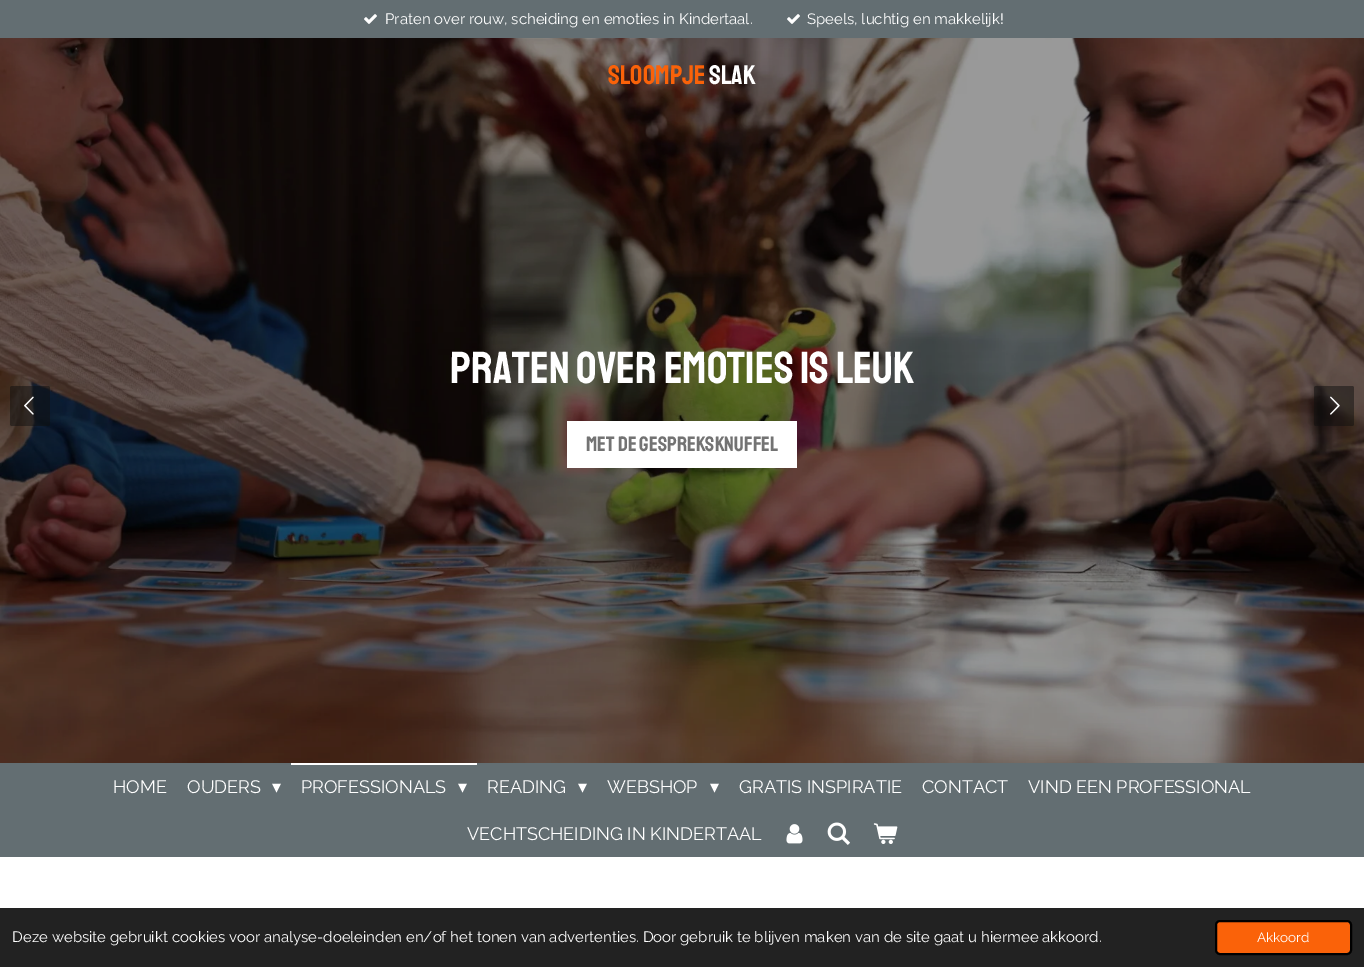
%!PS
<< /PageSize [1364 967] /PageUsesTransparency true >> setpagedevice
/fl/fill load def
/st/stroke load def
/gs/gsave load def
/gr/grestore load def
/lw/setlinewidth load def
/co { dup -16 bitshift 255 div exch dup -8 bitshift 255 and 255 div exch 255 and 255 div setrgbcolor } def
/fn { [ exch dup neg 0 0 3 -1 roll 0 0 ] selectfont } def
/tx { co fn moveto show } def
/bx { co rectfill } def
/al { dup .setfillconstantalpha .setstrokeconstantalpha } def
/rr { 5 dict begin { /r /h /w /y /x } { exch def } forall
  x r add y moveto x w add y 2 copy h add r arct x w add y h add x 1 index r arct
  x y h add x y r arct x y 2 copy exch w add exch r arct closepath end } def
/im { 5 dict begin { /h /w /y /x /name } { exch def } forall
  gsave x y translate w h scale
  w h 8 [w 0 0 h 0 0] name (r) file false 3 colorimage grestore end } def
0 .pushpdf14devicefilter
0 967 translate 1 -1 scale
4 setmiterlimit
0 0 1364 967 16#FFFFFF bx
0 0 1364 38 16#636E72 bx
(media/1.raw) 364 14 13 10 im
(media/1.raw) 787 14 13 10 im
(media/2.raw) 0 38 1364 725 im
567 421 230 47 16#FFFFFF bx
0.5 al
16#0F0F0F co
10 386 40 40 2 rr fl
1 al
(media/3.raw) 24 396 10 19 im
0.5 al
1314 386 40 40 2 rr fl
1 al
(media/4.raw) 1330 396 10 19 im
0 763 1364 94 16#636E72 bx
291 763 186 2 16#FFFFFF bx
(media/5.raw) 786 824 17 20 im
(media/6.raw) 827 822 23 23 im
(media/7.raw) 873 823 25 21 im
0 908 1364 59 16#222222 bx
16#FA6209 co
1216 921 135 33 4 rr gs fl gr
16#000000 co
2 lw
st
(Praten over rouw, scheiding en emoties in Kindertaal.) 385 24 /Raleway-Regular 15 16#FFFFFF tx
(Speels, luchtig en makkelijk!) 807 24 /Raleway-Regular 15 16#FFFFFF tx
(Sloompje) 608 84 /Staatliches-Regular 27 16#FA6209 tx
(slak) 709 84 /Staatliches-Regular 27 16#FFFFFF tx
(praten over emoties is leuk) 450 383 /Staatliches-Regular 45 16#FFFFFF tx
(met de gespreksknuffel) 586 451 /Staatliches-Regular 21 16#737373 tx
(HOME) 113 793 /Raleway-Regular 18 16#FFFFFF tx
(OUDERS) 187 793 /Raleway-Regular 18 16#FFFFFF tx
(▾) 272 793 /DejaVuSans-Regular 18 16#FFFFFF tx
(PROFESSIONALS) 301 793 /Raleway-Regular 18 16#FFFFFF tx
(▾) 458 793 /DejaVuSans-Regular 18 16#FFFFFF tx
(READING) 487 793 /Raleway-Regular 18 16#FFFFFF tx
(▾) 578 793 /DejaVuSans-Regular 18 16#FFFFFF tx
(WEBSHOP) 607 793 /Raleway-Regular 18 16#FFFFFF tx
(▾) 710 793 /DejaVuSans-Regular 18 16#FFFFFF tx
(GRATIS INSPIRATIE) 739 793 /Raleway-Regular 18 16#FFFFFF tx
(CONTACT) 922 793 /Raleway-Regular 18 16#FFFFFF tx
(VIND EEN PROFESSIONAL) 1028 793 /Raleway-Regular 18 16#FFFFFF tx
(VECHTSCHEIDING IN KINDERTAAL) 467 840 /Raleway-Regular 18 16#FFFFFF tx
(Deze website gebruikt cookies voor analyse-doeleinden en/of het tonen van advertenties. Door gebruik te blijven maken van de site gaat u hiermee akkoord.) 12 942 /Raleway-Regular 15 16#FFFFFF tx
(Akkoord) 1257 942 /Raleway-Regular 13.5 16#FFFFFF tx
.poppdf14devicefilter showpage
